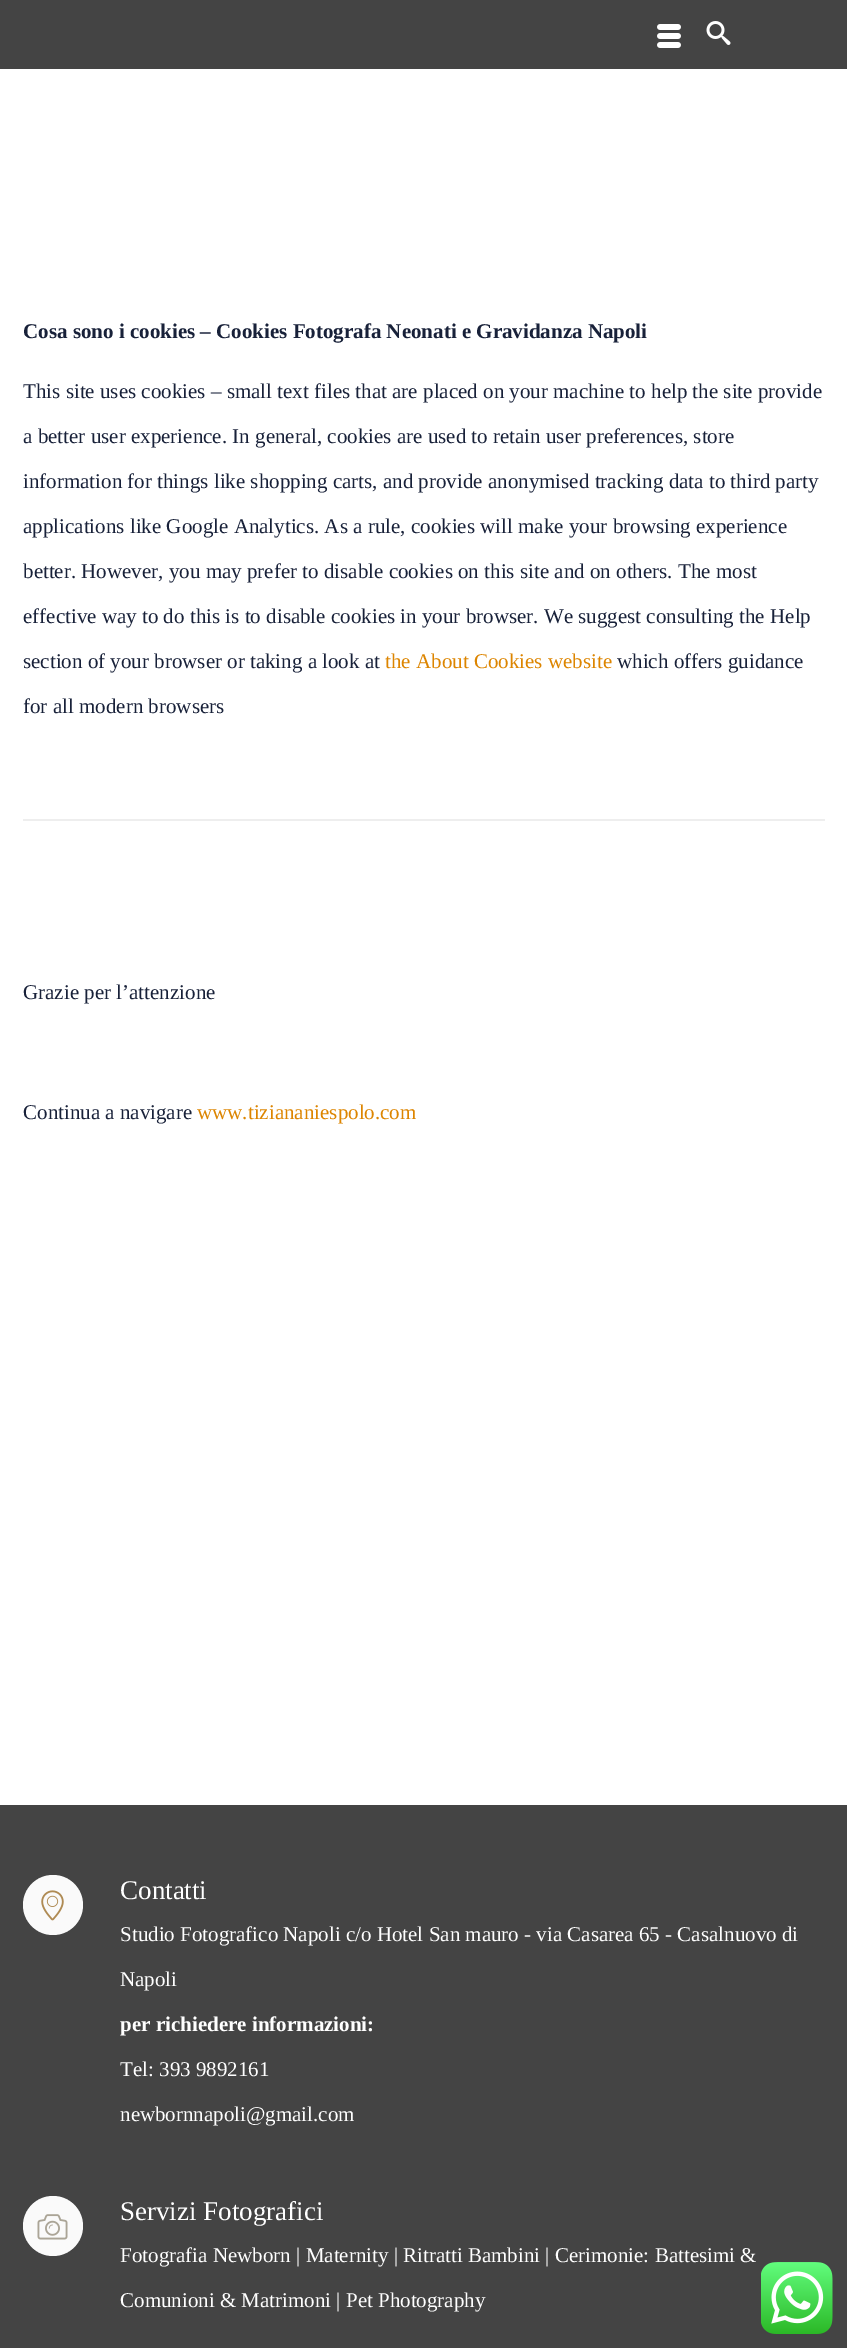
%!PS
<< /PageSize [847 2348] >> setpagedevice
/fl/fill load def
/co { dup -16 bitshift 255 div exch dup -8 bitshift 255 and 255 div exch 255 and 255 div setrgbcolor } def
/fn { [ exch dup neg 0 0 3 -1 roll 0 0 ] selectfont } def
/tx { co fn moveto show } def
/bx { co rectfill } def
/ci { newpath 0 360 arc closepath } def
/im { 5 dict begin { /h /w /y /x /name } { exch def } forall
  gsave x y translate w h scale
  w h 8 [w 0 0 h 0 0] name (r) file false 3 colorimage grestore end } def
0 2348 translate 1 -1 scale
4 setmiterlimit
0 0 847 2348 16#FFFFFF bx
0 0 847 69 16#444444 bx
(media/1.raw) 657 24 24 24 im
(media/2.raw) 706 21 25 24 im
23 819 802 2 16#EEEEEE bx
0 1805 847 543 16#444444 bx
16#FAFAFA co
53 1905 30 ci fl
(media/3.raw) 41 1890 23 31 im
53 2226 30 ci fl
(media/4.raw) 37 2214 31 26 im
(media/5.raw) 761 2262 72 72 im
(Cosa sono i cookies – Cookies Fotografa Neonati e Gravidanza Napoli) 23 338 /LiberationSerif-Bold 21 16#182139 tx
(This site uses cookies – small text files that are placed on your machine to help the site provide) 23 398 /LiberationSerif-Regular 21 16#182139 tx
(a better user experience. In general, cookies are used to retain user preferences, store) 23 443 /LiberationSerif-Regular 21 16#182139 tx
(information for things like shopping carts, and provide anonymised tracking data to third party) 23 488 /LiberationSerif-Regular 21 16#182139 tx
(applications like Google Analytics. As a rule, cookies will make your browsing experience) 23 533 /LiberationSerif-Regular 21 16#182139 tx
(better. However, you may prefer to disable cookies on this site and on others. The most) 23 578 /LiberationSerif-Regular 21 16#182139 tx
(effective way to do this is to disable cookies in your browser. We suggest consulting the Help) 23 623 /LiberationSerif-Regular 21 16#182139 tx
(section of your browser or taking a look at) 23 668 /LiberationSerif-Regular 21 16#182139 tx
(the About Cookies website) 385 668 /LiberationSerif-Regular 21 16#DD8500 tx
(which offers guidance) 617 668 /LiberationSerif-Regular 21 16#182139 tx
(for all modern browsers) 23 713 /LiberationSerif-Regular 21 16#182139 tx
(Grazie per l’attenzione) 23 999 /LiberationSerif-Regular 21 16#182139 tx
(Continua a navigare) 23 1119 /LiberationSerif-Regular 21 16#182139 tx
(www.tiziananiespolo.com) 197 1119 /LiberationSerif-Regular 21 16#DD8500 tx
(Contatti) 120 1899 /LiberationSerif-Regular 27 16#FFFFFF tx
(Studio Fotografico Napoli c/o Hotel San mauro - via Casarea 65 - Casalnuovo di) 120 1941 /LiberationSerif-Regular 21 16#FFFFFF tx
(Napoli) 120 1986 /LiberationSerif-Regular 21 16#FFFFFF tx
(per richiedere informazioni:) 120 2031 /LiberationSerif-Bold 21 16#FFFFFF tx
(Tel: 393 9892161) 120 2076 /LiberationSerif-Regular 21 16#FFFFFF tx
(newbornnapoli@gmail.com) 120 2121 /LiberationSerif-Regular 21 16#FFFFFF tx
(Servizi Fotografici) 120 2220 /LiberationSerif-Regular 27 16#FFFFFF tx
(Fotografia Newborn | Maternity | Ritratti Bambini | Cerimonie: Battesimi &) 120 2262 /LiberationSerif-Regular 21 16#FFFFFF tx
(Comunioni & Matrimoni | Pet Photography) 120 2307 /LiberationSerif-Regular 21 16#FFFFFF tx
showpage
